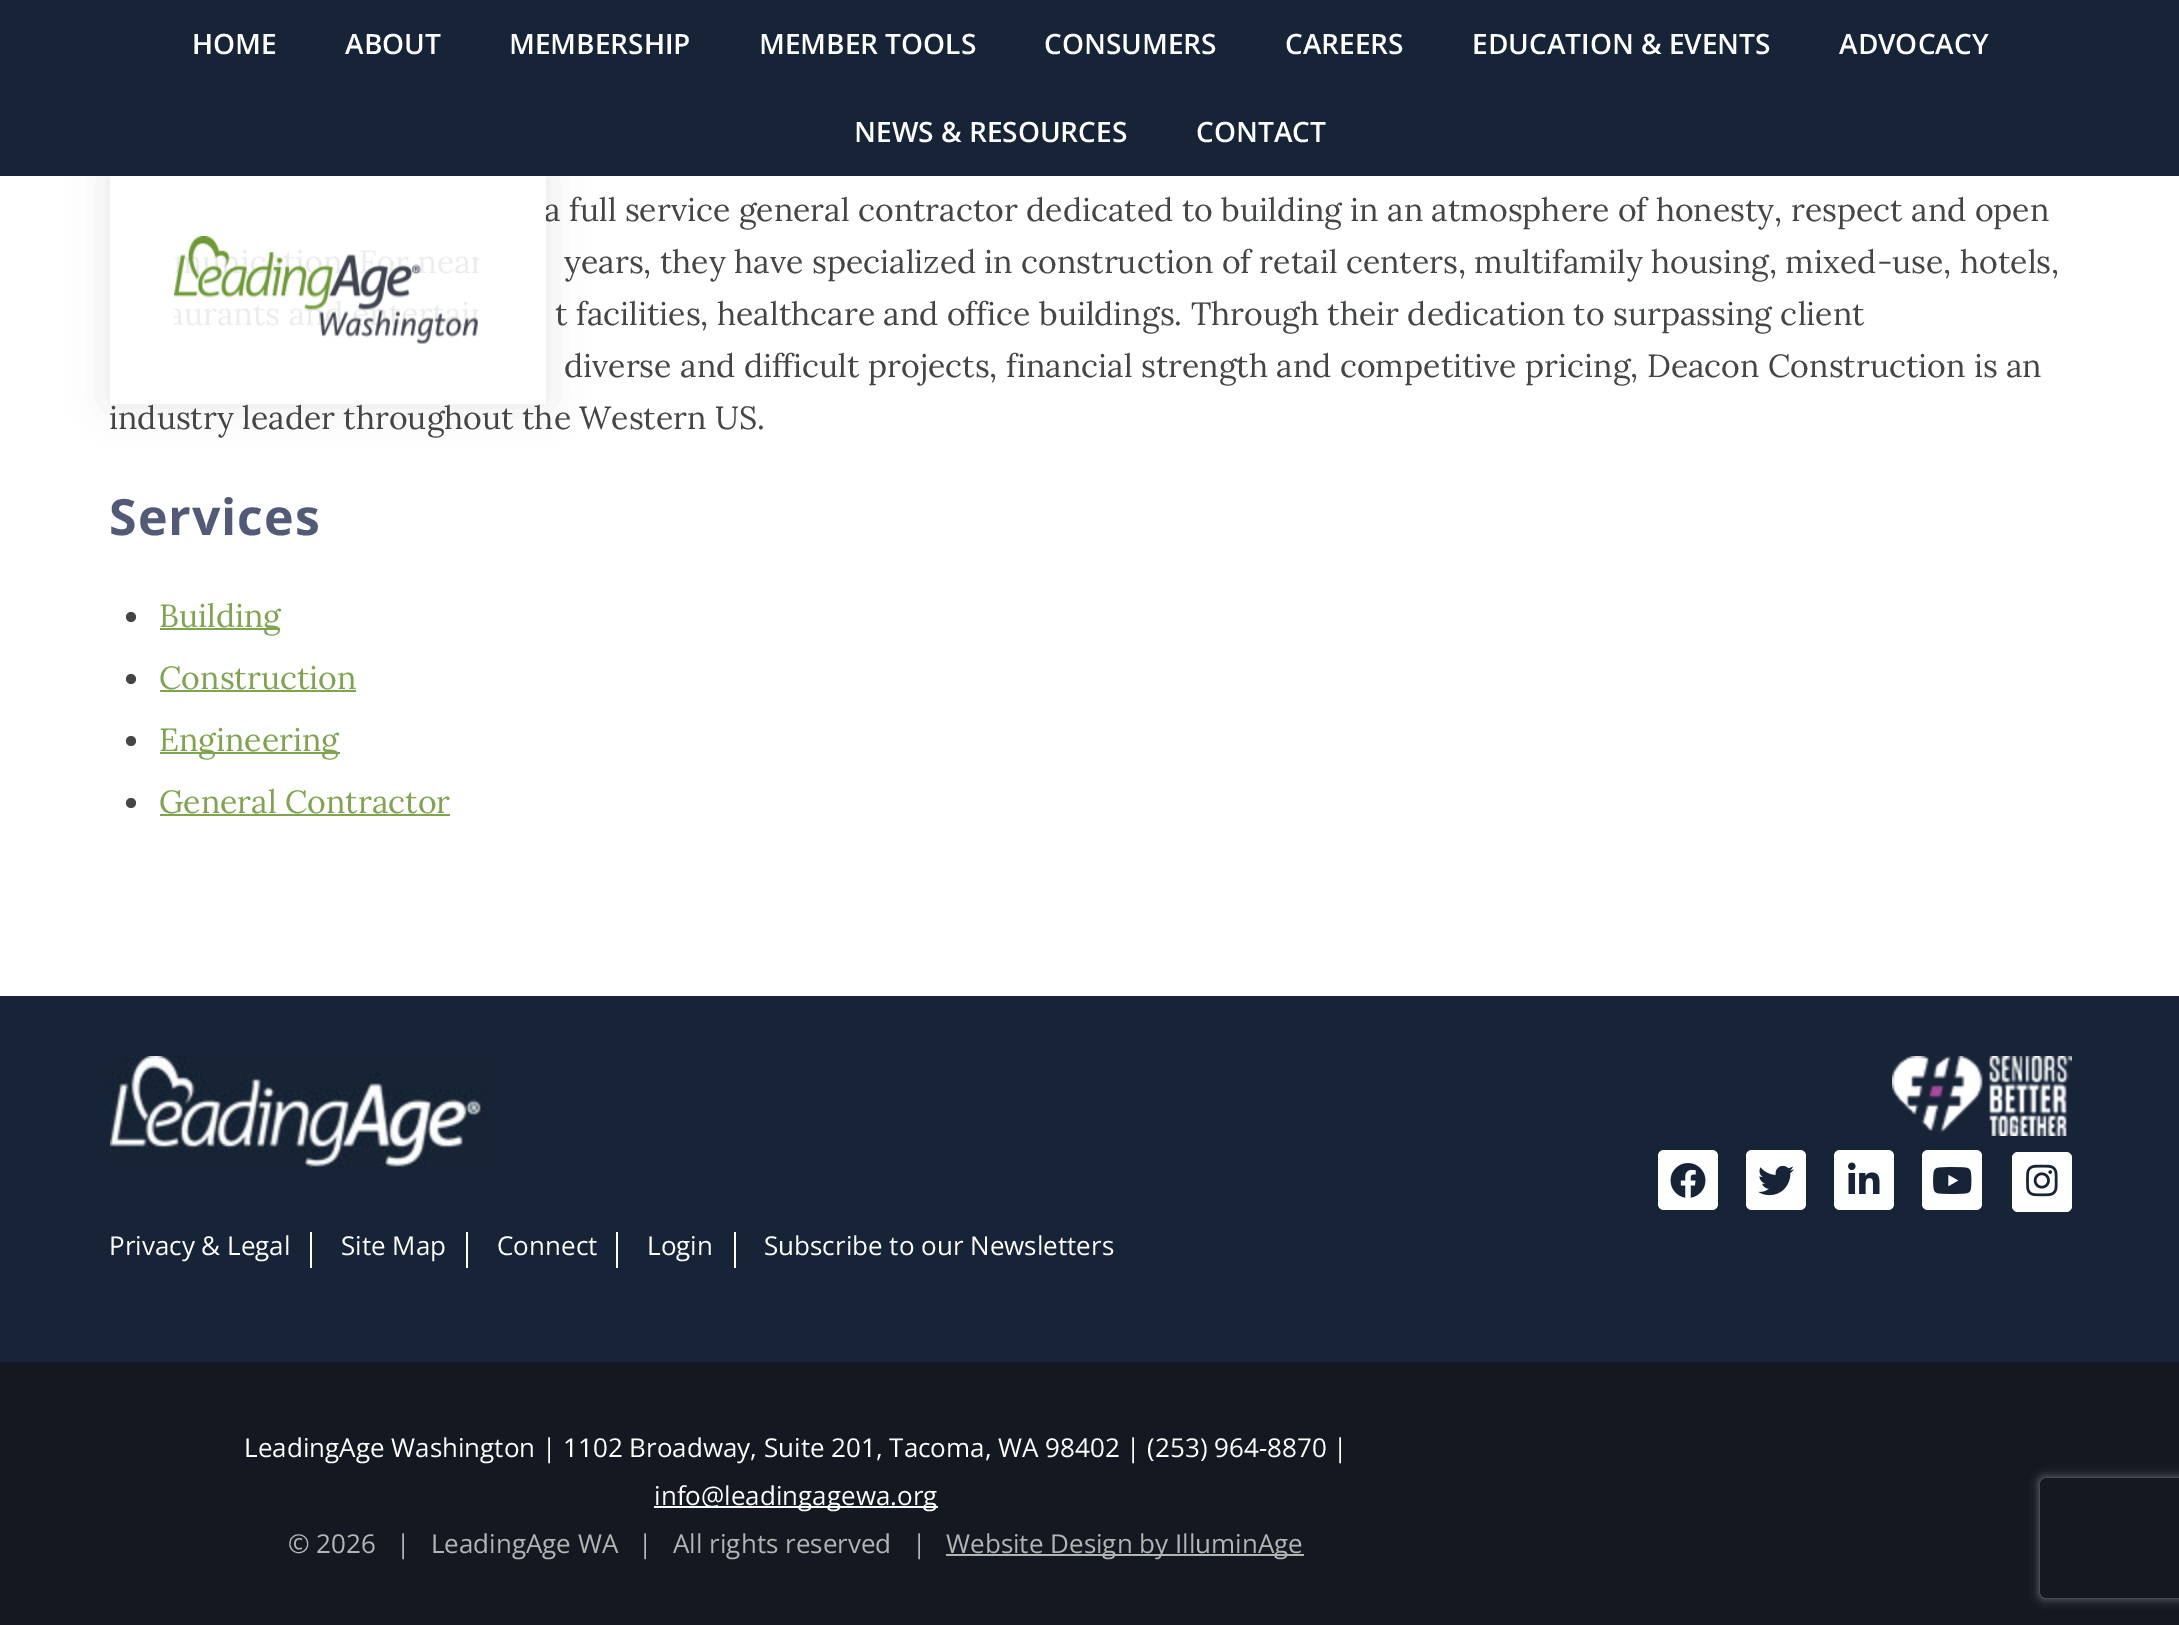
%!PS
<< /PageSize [2179 1625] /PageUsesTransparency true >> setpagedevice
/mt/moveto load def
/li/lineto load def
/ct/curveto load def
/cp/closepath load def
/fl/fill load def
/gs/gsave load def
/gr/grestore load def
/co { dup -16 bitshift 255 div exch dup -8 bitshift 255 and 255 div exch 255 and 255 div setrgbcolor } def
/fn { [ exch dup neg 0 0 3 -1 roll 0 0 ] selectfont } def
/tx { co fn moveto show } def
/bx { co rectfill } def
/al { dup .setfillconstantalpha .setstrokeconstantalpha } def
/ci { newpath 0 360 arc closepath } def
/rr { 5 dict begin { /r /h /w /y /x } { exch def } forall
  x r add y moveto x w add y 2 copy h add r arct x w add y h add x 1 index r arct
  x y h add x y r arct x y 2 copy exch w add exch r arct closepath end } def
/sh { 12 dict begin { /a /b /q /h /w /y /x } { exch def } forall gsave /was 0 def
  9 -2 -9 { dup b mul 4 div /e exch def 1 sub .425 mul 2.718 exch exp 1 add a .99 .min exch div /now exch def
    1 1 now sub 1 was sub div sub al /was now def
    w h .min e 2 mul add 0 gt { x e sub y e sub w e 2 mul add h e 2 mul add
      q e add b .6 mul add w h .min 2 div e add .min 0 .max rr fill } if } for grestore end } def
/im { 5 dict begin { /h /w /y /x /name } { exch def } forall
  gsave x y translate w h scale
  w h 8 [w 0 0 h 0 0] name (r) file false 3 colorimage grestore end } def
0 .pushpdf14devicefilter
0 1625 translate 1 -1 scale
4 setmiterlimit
0 0 2179 1625 16#FFFFFF bx
gs
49 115 mt 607 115 li 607 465 li 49 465 li cp 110 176 mt 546 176 li 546 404 li 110 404 li cp eoclip newpath
16#000000 co
110 176 436 228 0 20 .1 sh
gr
0 0 2179 176 16#172437 bx
(media/1.raw) 174 236 305 108 im
16#444545 co
131 617 5 ci fl
160 628 120 2 16#7EA44E bx
16#444545 co
131 679 5 ci fl
160 690 196 2 16#7EA44E bx
16#444545 co
131 741 5 ci fl
160 752 180 2 16#7EA44E bx
16#444545 co
131 803 5 ci fl
160 814 290 2 16#7EA44E bx
0 1362 2179 263 16#131821 bx
0 996 2179 366 16#172437 bx
(media/2.raw) 1892 1056 180 80 im
16#FFFFFF co
1658 1150 60 60 6 rr fl
(media/3.raw) 1670 1163 36 35 im
1746 1150 60 60 6 rr fl
(media/4.raw) 1758 1165 36 31 im
1834 1150 60 60 6 rr fl
(media/5.raw) 1848 1162 32 32 im
1922 1150 60 60 6 rr fl
(media/6.raw) 1933 1167 39 27 im
2012 1152 60 60 6 rr fl
(media/7.raw) 2026 1164 32 33 im
(media/8.raw) 110 1056 376 112 im
310 1232 2 36 16#FFFFFF bx
466 1232 2 36 16#FFFFFF bx
616 1232 2 36 16#FFFFFF bx
734 1232 2 36 16#FFFFFF bx
654 1506 284 2 16#FFFFFF bx
946 1554 358 2 16#B4B4B5 bx
gs
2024 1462 mt 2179 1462 li 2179 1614 li 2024 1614 li cp 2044 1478 mt 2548 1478 li 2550 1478 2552 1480 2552 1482 ct 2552 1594 li 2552 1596 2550 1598 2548 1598 ct 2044 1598 li 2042 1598 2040 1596 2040 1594 ct 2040 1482 li 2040 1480 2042 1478 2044 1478 ct cp eoclip newpath
16#808080 co
2040 1478 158 120 4 5 1 sh
gr
(HOME) 192 54 /OpenSans-SemiBold 28 16#FFFFFF tx
(ABOUT) 345 54 /OpenSans-SemiBold 28 16#FFFFFF tx
(MEMBERSHIP) 509 54 /OpenSans-SemiBold 28 16#FFFFFF tx
(MEMBER TOOLS) 759 54 /OpenSans-SemiBold 28 16#FFFFFF tx
(CONSUMERS) 1044 54 /OpenSans-SemiBold 28 16#FFFFFF tx
(CAREERS) 1285 54 /OpenSans-SemiBold 28 16#FFFFFF tx
(EDUCATION & EVENTS) 1472 54 /OpenSans-SemiBold 28 16#FFFFFF tx
(ADVOCACY) 1839 54 /OpenSans-SemiBold 28 16#FFFFFF tx
(NEWS & RESOURCES) 854 142 /OpenSans-SemiBold 28 16#FFFFFF tx
(CONTACT) 1196 142 /OpenSans-SemiBold 28 16#FFFFFF tx
(a full service general contractor dedicated to building in an atmosphere of honesty, respect and open) 544 221 /Lora-Regular 32 16#444545 tx
0.9 al
545 215 1 5 16#FFFFFF bx
1 al
(years, they have specialized in construction of retail centers, multifamily housing, mixed-use, hotels,) 564 273 /Lora-Regular 32 16#444545 tx
(t facilities, healthcare and office buildings. Through their dedication to surpassing client) 555 325 /Lora-Regular 32 16#444545 tx
(diverse and difficult projects, financial strength and competitive pricing, Deacon Construction is an) 564 377 /Lora-Regular 32 16#444545 tx
(industry leader throughout the Western US.) 109 429 /Lora-Regular 32 16#444545 tx
/OpenSans-Bold 50 fn
16#535A77 co
109 535 mt 1 0 (Services) ashow
(Building) 159 627 /Lora-Regular 32 16#7EA44E tx
(Construction) 159 689 /Lora-Regular 32 16#7EA44E tx
(Engineering) 159 751 /Lora-Regular 32 16#7EA44E tx
(General Contractor) 159 813 /Lora-Regular 32 16#7EA44E tx
(Privacy & Legal) 109 1255 /OpenSans-Regular 26 16#FFFFFF tx
(Site Map) 341 1255 /OpenSans-Regular 26 16#FFFFFF tx
(Connect) 497 1255 /OpenSans-Regular 26 16#FFFFFF tx
(Login) 647 1255 /OpenSans-Regular 26 16#FFFFFF tx
(Subscribe to our Newsletters) 764 1255 /OpenSans-Regular 26 16#FFFFFF tx
(LeadingAge Washington | 1102 Broadway, Suite 201, Tacoma, WA 98402 | \(253\) 964-8870 |) 244 1457 /OpenSans-Regular 26 16#FFFFFF tx
(info@leadingagewa.org) 654 1505 /OpenSans-Regular 26 16#FFFFFF tx
(© 2026   |   LeadingAge WA   |   All rights reserved   |) 288 1553 /OpenSans-Regular 26 16#B4B4B5 tx
(Website Design by IlluminAge) 946 1553 /OpenSans-Regular 26 16#B4B4B5 tx
.poppdf14devicefilter showpage
